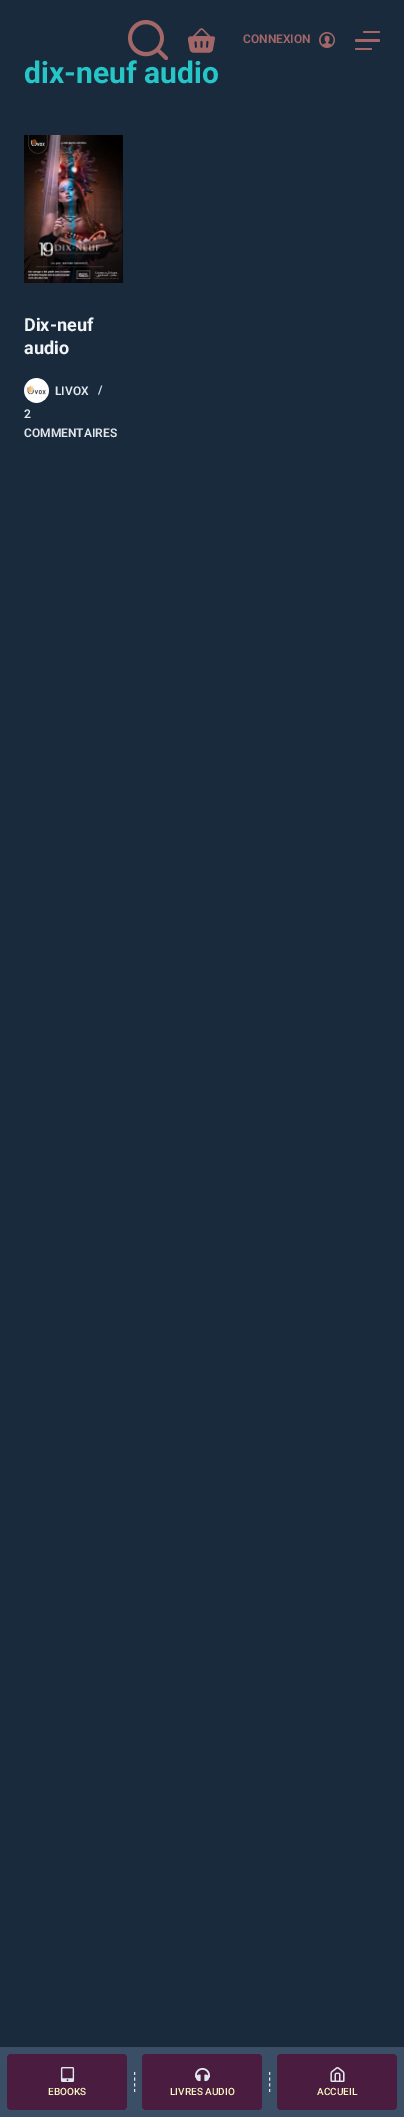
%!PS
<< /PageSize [404 2117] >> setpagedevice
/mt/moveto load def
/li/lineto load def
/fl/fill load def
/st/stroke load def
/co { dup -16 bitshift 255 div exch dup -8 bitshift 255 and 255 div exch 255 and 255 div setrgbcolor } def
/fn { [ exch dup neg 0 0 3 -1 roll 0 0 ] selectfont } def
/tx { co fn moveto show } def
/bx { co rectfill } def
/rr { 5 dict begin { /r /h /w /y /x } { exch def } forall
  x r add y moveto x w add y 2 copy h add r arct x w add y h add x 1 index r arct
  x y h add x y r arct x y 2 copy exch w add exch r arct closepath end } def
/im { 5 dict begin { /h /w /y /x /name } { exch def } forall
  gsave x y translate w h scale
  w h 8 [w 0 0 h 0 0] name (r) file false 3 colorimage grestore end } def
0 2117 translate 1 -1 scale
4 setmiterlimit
0 0 404 2117 16#192A3D bx
(media/1.raw) 128 20 40 40 im
(media/2.raw) 188 28 27 25 im
(media/3.raw) 319 32 16 16 im
16#A36767 co
363 31 17 2 1 rr fl
355 39 25 3 1.5 rr fl
355 48 17 2 1 rr fl
(media/4.raw) 24 135 99 148 im
(media/5.raw) 24 378 25 25 im
0 2047 404 70 16#3A4F66 bx
16#4A1D40 co
7 2054 120 56 4 rr fl
(media/6.raw) 60 2067 15 15 im
16#E1E8ED co
[3 2.67] 0 setdash
134.5 2072 mt 134.5 2092 li st
16#4A1D40 co
142 2054 120 56 4 rr fl
(media/7.raw) 195 2067 15 15 im
16#E1E8ED co
269.5 2072 mt 269.5 2092 li st
16#4A1D40 co
277 2054 120 56 4 rr fl
(media/8.raw) 330 2067 15 15 im
(CONNEXION) 243 43 /Roboto-SemiBold 12 16#A36767 tx
(dix-neuf audio) 24 83 /Roboto-Bold 30 16#26C5C7 tx
(Dix-neuf) 24 331 /Roboto-Bold 18 16#F2F5F7 tx
(audio) 24 354 /Roboto-Bold 18 16#F2F5F7 tx
(LIVOX) 55 395 /Roboto-SemiBold 12 16#E1E8ED tx
(/) 98 394 /Roboto-SemiBold 12 16#E1E8ED tx
(2) 24 418 /Roboto-SemiBold 12 16#E1E8ED tx
(COMMENTAIRES) 24 437 /Roboto-SemiBold 12 16#E1E8ED tx
(EBOOKS) 48 2095 /Roboto-Medium 10 16#FDF9C1 tx
(LIVRES AUDIO) 170 2095 /Roboto-Medium 10 16#FDF9C1 tx
(ACCUEIL) 317 2095 /Roboto-Medium 10 16#FDF9C1 tx
showpage
